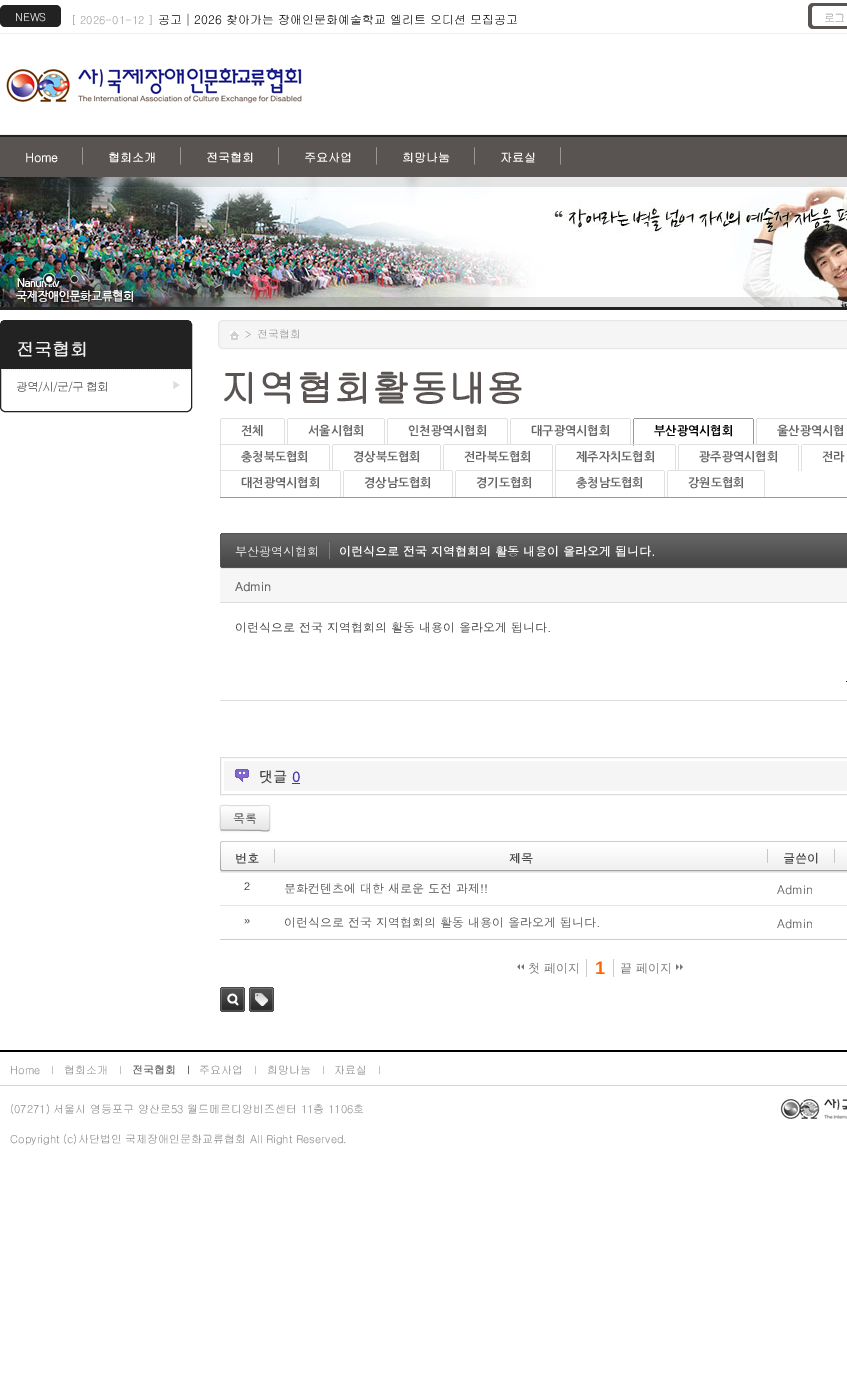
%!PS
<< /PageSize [847 1387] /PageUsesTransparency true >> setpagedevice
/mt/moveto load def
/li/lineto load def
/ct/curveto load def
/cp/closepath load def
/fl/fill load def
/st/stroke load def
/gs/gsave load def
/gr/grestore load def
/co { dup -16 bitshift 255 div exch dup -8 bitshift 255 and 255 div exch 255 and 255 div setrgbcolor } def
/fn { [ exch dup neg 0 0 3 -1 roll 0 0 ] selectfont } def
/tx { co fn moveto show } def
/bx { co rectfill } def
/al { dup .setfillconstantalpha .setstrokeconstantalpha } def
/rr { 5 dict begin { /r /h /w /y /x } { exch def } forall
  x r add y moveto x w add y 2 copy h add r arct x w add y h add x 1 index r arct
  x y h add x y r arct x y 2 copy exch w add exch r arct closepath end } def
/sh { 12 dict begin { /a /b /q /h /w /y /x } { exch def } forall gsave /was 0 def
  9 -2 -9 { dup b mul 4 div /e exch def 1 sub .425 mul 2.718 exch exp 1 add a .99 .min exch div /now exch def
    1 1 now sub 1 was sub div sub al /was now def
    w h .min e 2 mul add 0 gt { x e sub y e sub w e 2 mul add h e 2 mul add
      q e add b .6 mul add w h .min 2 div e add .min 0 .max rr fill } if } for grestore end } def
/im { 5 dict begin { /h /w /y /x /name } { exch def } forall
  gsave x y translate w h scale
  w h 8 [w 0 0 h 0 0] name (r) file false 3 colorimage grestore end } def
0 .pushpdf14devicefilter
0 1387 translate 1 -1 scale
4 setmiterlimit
0 0 847 1387 16#FFFFFF bx
0 33 847 1 16#EEEEEE bx
16#222222 co
0 5 61 22 5 rr fl
16#595451 co
808 3 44 26 5 rr fl
16#FFFFFF co
812 6 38 20 3 rr fl
0 134 847 1 16#EEEEEE bx
(media/1.raw) 6 65 296 38 im
0 137 847 40 16#595451 bx
0 135 847 2 16#222222 bx
(media/2.raw) 82 147 1 18 im
(media/2.raw) 180 147 1 18 im
(media/2.raw) 278 147 1 18 im
(media/2.raw) 376 147 1 18 im
(media/2.raw) 474 147 1 18 im
(media/2.raw) 560 147 1 18 im
0 307 847 3 16#222222 bx
(media/3.raw) 0 177 847 130 im
(media/4.raw) 40 270 18 17 im
(media/5.raw) 69 273 11 12 im
16#F5F5F5 co
218.5 320.5 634 28 4.5 rr gs fl gr
16#E7E7E7 co
st
(media/6.raw) 230 331 9 9 im
16#222222 co
.5 320.5 191 91 4.5 rr st
1 321 190 48 16#222222 bx
16#E8E8E8 co
[1 1] 0 setdash
1 369.5 mt 191 369.5 li st
220 497 627 1 16#999999 bx
284 419 1 26 16#E0E0E0 bx
220 419 1 78 16#E0E0E0 bx
221 418 63 1 16#E0E0E0 bx
384 419 1 26 16#E0E0E0 bx
287 419 1 26 16#E0E0E0 bx
288 418 96 1 16#E0E0E0 bx
507 419 1 26 16#E0E0E0 bx
387 419 1 26 16#E0E0E0 bx
388 418 119 1 16#E0E0E0 bx
630 419 1 26 16#E0E0E0 bx
510 419 1 26 16#E0E0E0 bx
511 418 119 1 16#E0E0E0 bx
753 419 1 27 16#999999 bx
753 445 1 1 16#FFFFFF bx
633 419 1 27 16#999999 bx
634 418 119 1 16#999999 bx
756 419 1 26 16#E0E0E0 bx
757 418 90 1 16#E0E0E0 bx
329 445 1 26 16#E0E0E0 bx
221 444 108 1 16#E0E0E0 bx
440 445 1 26 16#E0E0E0 bx
332 445 1 26 16#E0E0E0 bx
333 444 107 1 16#E0E0E0 bx
552 445 1 52 16#E0E0E0 bx
443 445 1 26 16#E0E0E0 bx
444 444 108 1 16#E0E0E0 bx
675 445 1 26 16#E0E0E0 bx
555 445 1 52 16#E0E0E0 bx
556 444 119 1 16#E0E0E0 bx
798 445 1 26 16#E0E0E0 bx
678 445 1 26 16#E0E0E0 bx
679 444 119 1 16#E0E0E0 bx
801 445 1 26 16#E0E0E0 bx
802 444 45 1 16#E0E0E0 bx
340 471 1 26 16#E0E0E0 bx
221 470 119 1 16#E0E0E0 bx
452 471 1 26 16#E0E0E0 bx
343 471 1 26 16#E0E0E0 bx
344 470 108 1 16#E0E0E0 bx
455 471 1 26 16#E0E0E0 bx
456 470 96 1 16#E0E0E0 bx
664 471 1 26 16#E0E0E0 bx
556 470 108 1 16#E0E0E0 bx
764 471 1 26 16#E0E0E0 bx
667 471 1 26 16#E0E0E0 bx
668 470 96 1 16#E0E0E0 bx
(media/7.raw) 220 533 627 36 im
329 542 1 17 16#7E7E7E bx
220 569 627 33 16#F6F6F6 bx
220 602 627 1 16#DDDDDD bx
846 681 1 1 16#0000EE bx
220 700 627 1 16#DDDDDD bx
[] 0 setdash
220.5 757.5 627 37 rectstroke
224 761 623 30 16#F5F5F5 bx
(media/8.raw) 235 769 14 13 im
292 783 8 1 16#4736AC bx
16#000000 co
220 806 50 26 2 1 .05 sh
16#F5F5F5 co
220 805 50 26 2 rr fl
gs
220 805 50 26 2 rr clip newpath
gs 220 806 mt 270 806 li 270 830 li 220 830 li cp clip newpath
<< /ShadingType 2 /ColorSpace /DeviceRGB /Coords [245 806 245 830] /Extend [true true] /Function << /FunctionType 2 /Domain [0 1] /C0 [1 1 1] /C1 [.902 .902 .902] /N 1 >> >> shfill gr
gr
16#FEFEFE co
222 807 mt 268 807 li 269 808 li 269 804 266 806 260 806 ct 230 806 li 223 806 221 804 221 809 ct cp fl
16#A2A2A2 co
269 830 mt 267 832 263.5 830.5 260.5 830.5 ct 221 830 li st
0.1 al
16#000000 co
221 830 mt 219.5 828.5 220.5 820 220.5 818 ct 220.5 804 217.5 805.5 229.5 805.5 ct 260.5 805.5 li 272.5 805.5 269.5 804 269.5 818 ct 269.5 820 270.5 828.5 269 830 ct st
1 al
(media/9.raw) 220 841 627 32 im
220 939 627 1 16#CDCDCD bx
274 849 1 14 16#C7C7C7 bx
767 849 1 14 16#C7C7C7 bx
834 849 1 14 16#C7C7C7 bx
220 905 627 1 16#E6E6E6 bx
16#767676 co
520 964 mt 520 970 li 517 967 li cp fl
16#FFFFFF co
520 970 mt 517 970 li 517 967 li cp fl
16#767676 co
524 964 mt 524 970 li 521 967 li cp fl
16#FFFFFF co
524 970 mt 521 970 li 521 967 li cp fl
613 959 1 18 16#CCCCCC bx
586 959 1 18 16#CCCCCC bx
16#767676 co
676 970 mt 676 964 li 679 967 li cp 680 970 mt 680 964 li 683 967 li cp fl
(media/10.raw) 220 987 25 25 im
(media/11.raw) 249 987 25 25 im
0 1050 847 2 16#000000 bx
0 1085 847 1 16#D8D8D8 bx
(media/12.raw) 777 1096 70 23 im
(NEWS) 15 21 /Gulim-Regular 11 16#FFFFFF tx
([ 2026-01-12 ]) 71 24 /Gulim-Regular 11 16#999999 tx
(공고│2026 찾아가는 장애인문화예술학교 엘리트 오디션 모집공고) 158 24 /Gulim-Regular 12 16#000000 tx
/Gulim-Regular 11 fn
16#999999 co
824 22 mt -1 0 (로그) ashow
(Home) 25 162 /Gulim-Bold 12 16#FFFFFF tx
(협회소개) 108 162 /Gulim-Bold 12 16#FFFFFF tx
(전국협회) 206 162 /Gulim-Bold 12 16#FFFFFF tx
(주요사업) 304 162 /Gulim-Bold 12 16#FFFFFF tx
(희망나눔) 402 162 /Gulim-Bold 12 16#FFFFFF tx
(자료실) 500 162 /Gulim-Bold 12 16#FFFFFF tx
(>) 245 338 /Gulim-Regular 10 16#999999 tx
(전국협회) 257 338 /Gulim-Regular 11 16#999999 tx
(전국협회) 16 356 /Gulim-Bold 18 16#EFEFEF tx
/Gulim-Regular 12 fn
16#3E3E3E co
16 391 mt -1 0 (광역/시/군/구 협회) ashow
/Gulim-Regular 11 fn
16#DDDDDD co
171 389 mt -1 0 (▶) ashow
(지역협회활동내용) 220 402 /Gulim-Bold 38 16#595451 tx
(전체) 241 435 /NanumGothic-Bold 12 16#666666 tx
(서울시협회) 308 435 /NanumGothic-Bold 12 16#666666 tx
(인천광역시협회) 408 435 /NanumGothic-Bold 12 16#666666 tx
(대구광역시협회) 531 435 /NanumGothic-Bold 12 16#666666 tx
(부산광역시협회) 654 435 /NanumGothic-Bold 12 16#000000 tx
(울산광역시협) 777 435 /NanumGothic-Bold 12 16#666666 tx
(충청북도협회) 241 461 /NanumGothic-Bold 12 16#666666 tx
(경상북도협회) 353 461 /NanumGothic-Bold 12 16#666666 tx
(전라북도협회) 464 461 /NanumGothic-Bold 12 16#666666 tx
(제주자치도협회) 576 461 /NanumGothic-Bold 12 16#666666 tx
(광주광역시협회) 699 461 /NanumGothic-Bold 12 16#666666 tx
(전라) 822 461 /NanumGothic-Bold 12 16#666666 tx
(대전광역시협회) 241 487 /NanumGothic-Bold 12 16#666666 tx
(경상남도협회) 364 487 /NanumGothic-Bold 12 16#666666 tx
(경기도협회) 476 487 /NanumGothic-Bold 12 16#666666 tx
(충청남도협회) 576 487 /NanumGothic-Bold 12 16#666666 tx
(강원도협회) 688 487 /NanumGothic-Bold 12 16#666666 tx
(부산광역시협회) 235 556 /Dotum-Regular 12 16#FFFFFF tx
(이런식으로 전국 지역협회의 활동 내용이 올라오게 됩니다.) 339 556 /Dotum-Bold 12 16#FFFFFF tx
(Admin) 235 591 /Dotum-Bold 12 16#666666 tx
(이런식으로 전국 지역협회의 활동 내용이 올라오게 됩니다.) 235 632 /Dotum-Regular 12 16#333333 tx
(댓글) 259 782 /Dotum-Bold 14 16#4A4A4A tx
(0) 292 782 /Dotum-Bold 14 16#4736AC tx
(목록) 233 823 /Dotum-Regular 12 16#333333 tx
(번호) 235 863 /Dotum-Bold 12 16#4A4A4A tx
(제목) 509 863 /Dotum-Bold 12 16#4A4A4A tx
(글쓴이) 783 863 /Dotum-Bold 12 16#4A4A4A tx
(2) 244 890 /LiberationSans-Regular 11 16#4A4A4A tx
(문화컨텐츠에 대한 새로운 도전 과제!!) 284 893 /Dotum-Regular 12 16#4A4A4A tx
(Admin) 777 894 /Dotum-Regular 12 16#4A4A4A tx
(») 244 924 /LiberationSans-Regular 11 16#4A4A4A tx
(이런식으로 전국 지역협회의 활동 내용이 올라오게 됩니다.) 284 927 /Dotum-Regular 12 16#4A4A4A tx
(Admin) 777 928 /Dotum-Regular 12 16#4A4A4A tx
(첫 페이지) 528 972 /WenQuanYiZenHei-Medium 12 16#767676 tx
(1) 595 974 /LiberationSans-Bold 18 16#FF6600 tx
(끝 페이지) 620 972 /WenQuanYiZenHei-Medium 12 16#767676 tx
(Home   l) 10 1074 /Gulim-Regular 11 16#888888 tx
(협회소개   l) 64 1074 /Gulim-Regular 11 16#888888 tx
(전국협회   l) 132 1074 /Gulim-Bold 11 16#666666 tx
(주요사업   l) 199 1074 /Gulim-Regular 11 16#888888 tx
(희망나눔   l) 267 1074 /Gulim-Regular 11 16#888888 tx
(자료실   l) 334 1074 /Gulim-Regular 11 16#888888 tx
(\(07271\) 서울시 영등포구 양산로53 월드메르디앙비즈센터 11층 1106호) 10 1113 /Gulim-Regular 11 16#888888 tx
(Copyright \(c\)사단법인 국제장애인문화교류협회 All Right Reserved.) 10 1143 /Gulim-Regular 11 16#888888 tx
.poppdf14devicefilter showpage
